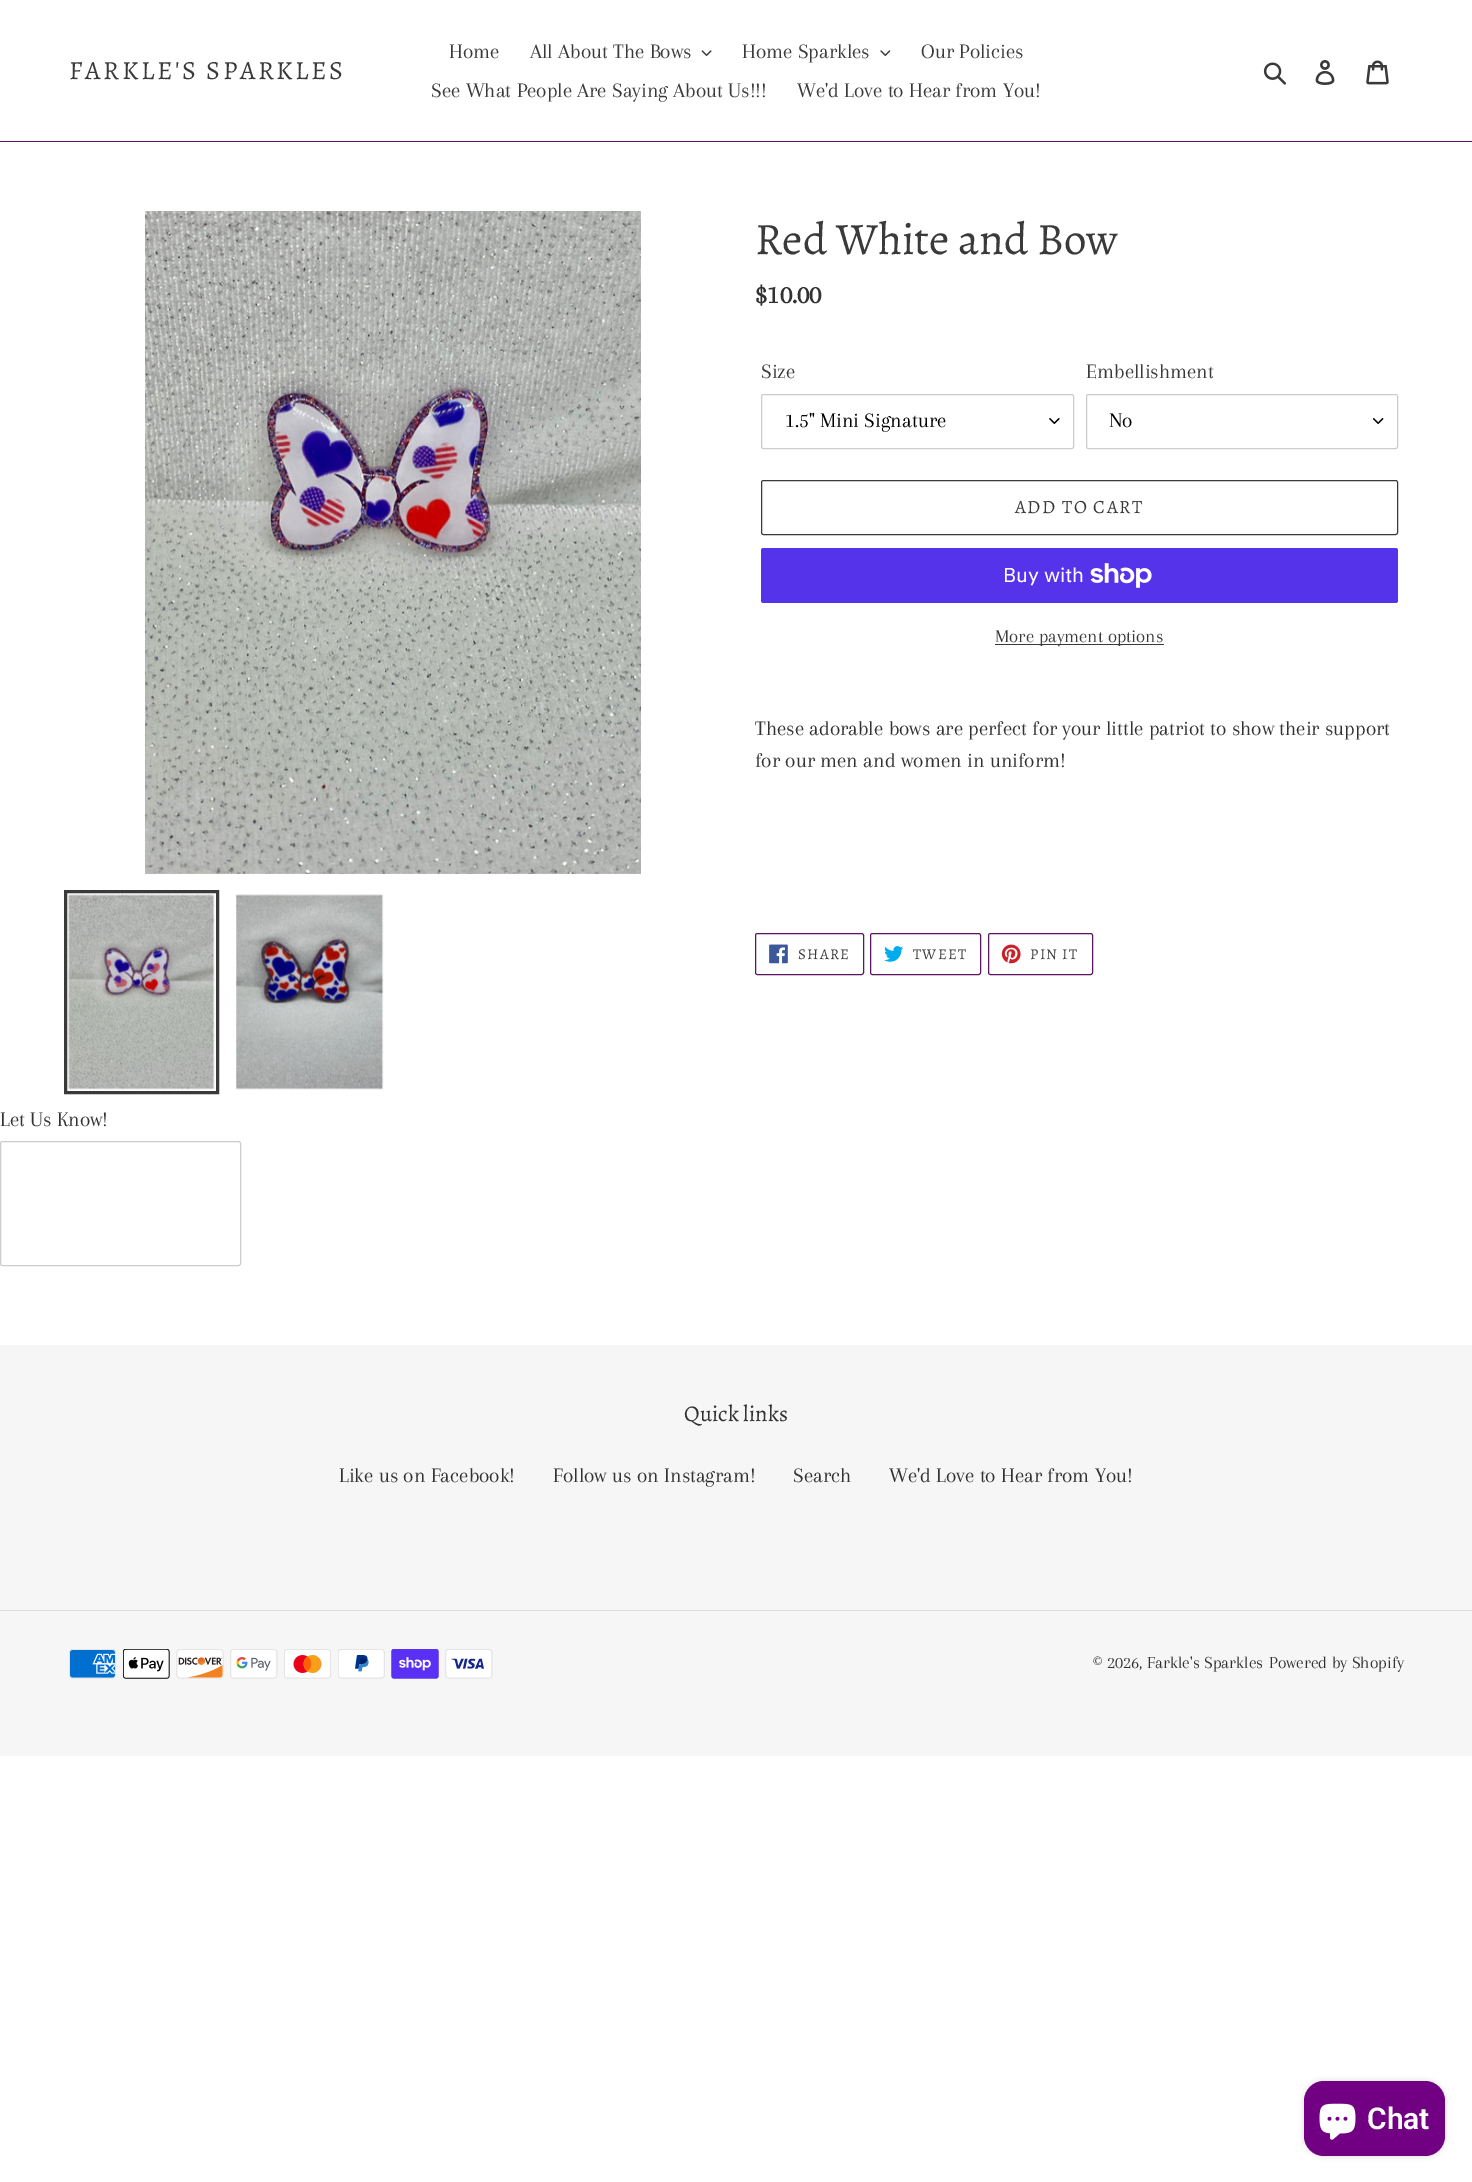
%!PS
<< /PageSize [1472 2182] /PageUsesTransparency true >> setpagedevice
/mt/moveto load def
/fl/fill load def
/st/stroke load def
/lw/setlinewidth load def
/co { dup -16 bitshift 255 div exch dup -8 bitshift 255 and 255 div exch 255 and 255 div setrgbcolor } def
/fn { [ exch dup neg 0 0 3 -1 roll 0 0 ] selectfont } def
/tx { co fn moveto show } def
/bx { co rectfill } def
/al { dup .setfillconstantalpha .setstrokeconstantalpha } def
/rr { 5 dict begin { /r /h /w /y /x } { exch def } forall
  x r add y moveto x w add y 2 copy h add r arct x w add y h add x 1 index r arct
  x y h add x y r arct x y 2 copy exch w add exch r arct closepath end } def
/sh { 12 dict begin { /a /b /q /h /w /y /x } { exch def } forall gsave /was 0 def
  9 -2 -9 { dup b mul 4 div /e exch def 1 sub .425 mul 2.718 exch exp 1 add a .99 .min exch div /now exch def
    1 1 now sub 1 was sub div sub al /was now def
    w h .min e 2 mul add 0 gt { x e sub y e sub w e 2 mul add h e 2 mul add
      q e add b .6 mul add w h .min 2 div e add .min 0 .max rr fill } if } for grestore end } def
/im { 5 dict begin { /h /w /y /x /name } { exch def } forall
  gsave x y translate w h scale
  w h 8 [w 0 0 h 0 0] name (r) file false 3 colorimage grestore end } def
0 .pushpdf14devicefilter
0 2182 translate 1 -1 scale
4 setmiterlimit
0 0 1472 2182 16#FFFFFF bx
0 141 1472 1 16#5D1463 bx
(media/1.raw) 701 50 11 6 im
(media/2.raw) 880 50 11 6 im
(media/3.raw) 1263 62 23 23 im
(media/4.raw) 1315 60 20 25 im
(media/5.raw) 1366 60 23 25 im
(media/6.raw) 145 211 496 663 im
16#3A3A3A co
3 lw
65.5 891.5 152 201 rectstroke
(media/7.raw) 68 894 147 196 im
(media/8.raw) 236 894 148 196 im
(media/9.raw) 1049 418 11 6 im
16#CCCCCC co
1 lw
761.5 394.5 312 54 2 rr st
(media/10.raw) 1373 418 11 6 im
1086.5 394.5 311 54 2 rr st
16#3A3A3A co
761.5 480.5 636 54 2 rr st
16#5433EB co
761 548 637 55 2.5 rr fl
(media/11.raw) 1090 563 62 25 im
995 644 169 1 16#3A3A3A bx
16#5D1463 co
755.5 933.5 108 41 2 rr st
(media/12.raw) 769 944 19 20 im
870.5 933.5 110 41 2 rr st
(media/13.raw) 884 946 20 16 im
988.5 933.5 104 41 2 rr st
(media/14.raw) 1001 944 20 20 im
16#CCCCCC co
.5 1141.5 240 124 2 rr st
0 1345 1472 411 16#F6F6F6 bx
0 1610 1472 1 16#DDDDDD bx
(media/15.raw) 69 1649 47 30 im
(media/16.raw) 123 1649 47 30 im
(media/17.raw) 176 1649 48 30 im
(media/18.raw) 230 1649 48 30 im
(media/19.raw) 284 1649 47 30 im
(media/20.raw) 338 1649 47 30 im
(media/21.raw) 391 1649 48 30 im
(media/22.raw) 445 1649 48 30 im
16#000000 co
1304 2081 141 75 20 3 .15 sh
16#720083 co
1304 2081 141 75 20 rr fl
(media/23.raw) 1319 2103 37 37 im
/Alegreya-Regular 26.25 fn
16#3A3A3A co
69 79 mt 2.6 0 (FARKLE'S SPARKLES) ashow
(Home) 449 58 /Arapey-Regular 21.25 16#3A3A3A tx
(All About The Bows) 530 58 /Arapey-Regular 21.25 16#3A3A3A tx
(Home Sparkles) 742 58 /Arapey-Regular 21.25 16#3A3A3A tx
(Our Policies) 921 58 /Arapey-Regular 21.25 16#3A3A3A tx
(See What People Are Saying About Us!!!) 431 97 /Arapey-Regular 21.25 16#3A3A3A tx
(We'd Love to Hear from You!) 797 97 /Arapey-Regular 21.25 16#3A3A3A tx
(Red White and Bow) 755 254 /Alegreya-Regular 45 16#3A3A3A tx
($10.00) 755 303 /Arapey-Bold 26.5 16#333232 tx
(Size) 761 378 /Arapey-Regular 21.25 16#3A3A3A tx
(1.5" Mini Signature) 785 427 /Arapey-Regular 21.25 16#000000 tx
(Embellishment) 1086 378 /Arapey-Regular 21.25 16#3A3A3A tx
(No) 1109 427 /Arapey-Regular 21.25 16#000000 tx
/Alegreya-Regular 18.75 fn
16#3A3A3A co
1015 513 mt 1.5 0 (ADD TO CART) ashow
(Buy with) 1003 582 /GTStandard-Regular 20 16#FFFFFF tx
(More payment options) 995 642 /Arapey-Regular 18.75 16#3A3A3A tx
(These adorable bows are perfect for your little patriot to show their support) 755 735 /Arapey-Regular 21.25 16#333232 tx
(for our men and women in uniform!) 755 767 /Arapey-Regular 21.25 16#333232 tx
/Alegreya-Regular 15 fn
16#3A3A3A co
798 959 mt 1.25 0 (SHARE) ashow
913 959 mt 1.25 0 (TWEET) ashow
1030 959 mt 1.25 0 (PIN IT) ashow
(Let Us Know!) 0 1126 /Arapey-Regular 21.25 16#333232 tx
(Quick links) 684 1421 /Alegreya-Regular 22.5 16#333232 tx
(Like us on Facebook!) 339 1482 /Arapey-Regular 21.25 16#333232 tx
(Follow us on Instagram!) 553 1482 /Arapey-Regular 21.25 16#333232 tx
(Search) 793 1482 /Arapey-Regular 21.25 16#333232 tx
(We'd Love to Hear from You!) 889 1482 /Arapey-Regular 21.25 16#333232 tx
(© 2026, Farkle's Sparkles) 1093 1668 /Arapey-Regular 17.5 16#333232 tx
(Powered by Shopify) 1269 1668 /Arapey-Regular 17.5 16#333232 tx
(Chat) 1367 2129 /Roboto-SemiBold 30 16#FFFFFF tx
.poppdf14devicefilter showpage
